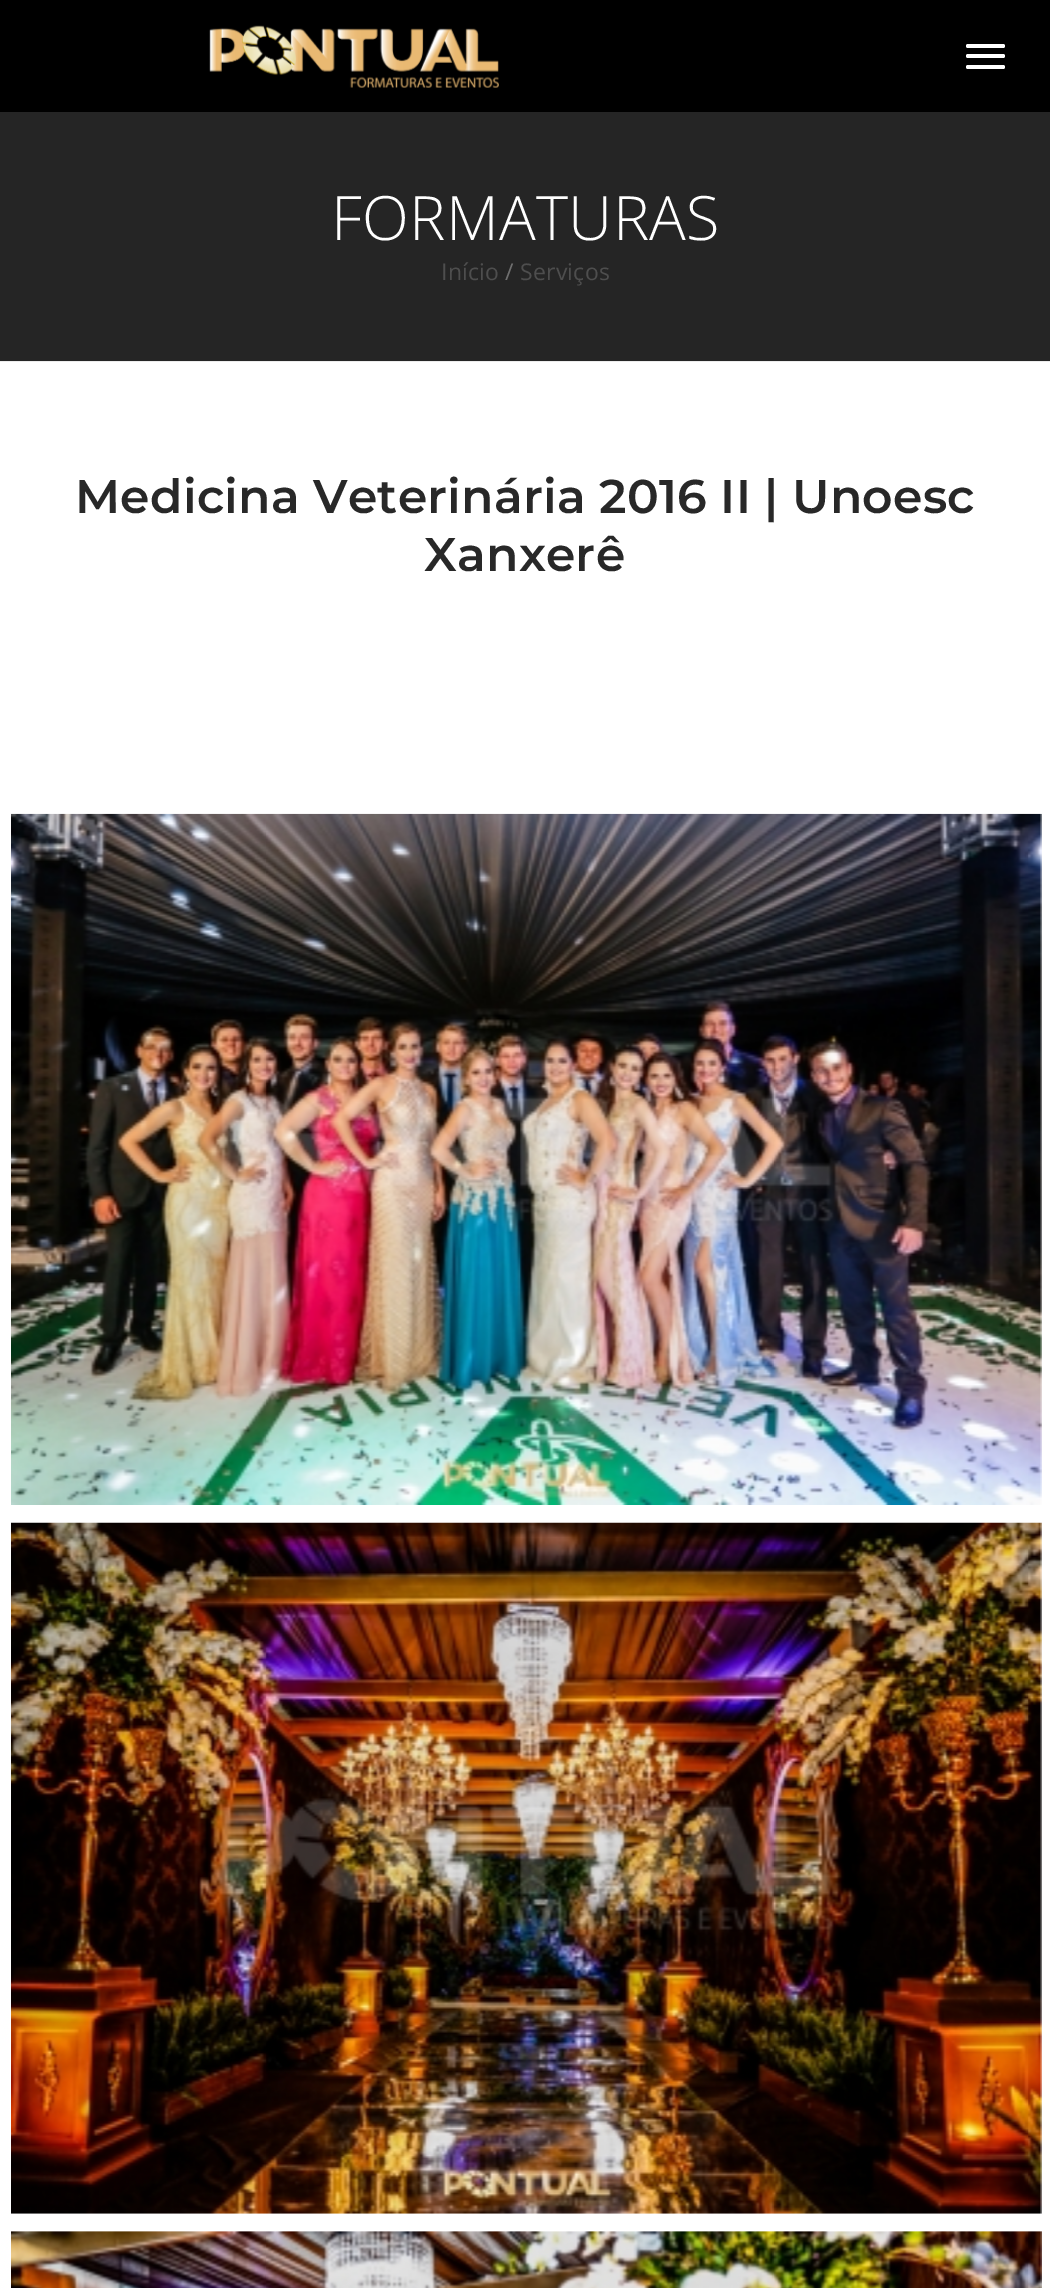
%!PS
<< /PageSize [1050 2288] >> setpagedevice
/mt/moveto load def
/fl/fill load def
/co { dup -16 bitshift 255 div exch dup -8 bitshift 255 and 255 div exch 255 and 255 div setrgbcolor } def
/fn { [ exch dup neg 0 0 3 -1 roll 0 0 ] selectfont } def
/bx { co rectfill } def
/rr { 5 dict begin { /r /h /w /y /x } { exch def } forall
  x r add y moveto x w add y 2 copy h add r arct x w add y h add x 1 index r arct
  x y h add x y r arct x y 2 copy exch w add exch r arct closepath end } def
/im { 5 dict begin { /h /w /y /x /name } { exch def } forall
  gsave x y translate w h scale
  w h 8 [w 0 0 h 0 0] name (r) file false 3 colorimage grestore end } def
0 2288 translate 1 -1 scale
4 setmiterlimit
0 0 1050 2288 16#252525 bx
0 0 1050 112 16#000000 bx
(media/1.raw) 209 25 290 63 im
16#FFFFFF co
966 44 39 4 2 rr fl
966 54 39 4 2 rr fl
966 65 39 4 2 rr fl
0 361 1050 1 16#ECECEC bx
0 362 1050 1926 16#FFFFFF bx
(media/2.raw) 11 813 1031 692 im
(media/3.raw) 11 1522 1031 692 im
(media/4.raw) 11 2231 1031 57 im
/OpenSans-Light 61.25 fn
331 240 mt .25 0 (FORMATURAS) ashow
/OpenSans-Regular 23 fn
16#4E4E4E co
441 280 mt .25 0 (Início) ashow
16#707070 co
505 280 mt .25 0 (/) ashow
16#4E4E4E co
520 280 mt .25 0 (Serviços) ashow
/Montserrat-SemiBold 47.25 fn
16#282828 co
75 513 mt .25 0 (Medicina Veterinária 2016 II | Unoesc) ashow
424 571 mt .25 0 (Xanxerê) ashow
showpage
